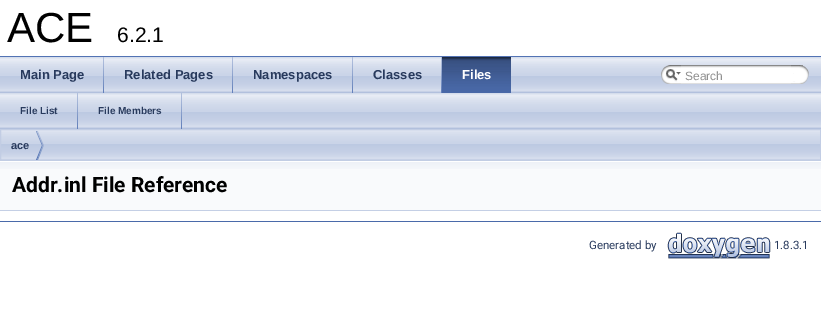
%!PS
<< /PageSize [821 317] >> setpagedevice
/co { dup -16 bitshift 255 div exch dup -8 bitshift 255 and 255 div exch 255 and 255 div setrgbcolor } def
/fn { [ exch dup neg 0 0 3 -1 roll 0 0 ] selectfont } def
/tx { co fn moveto show } def
/bx { co rectfill } def
/im { 5 dict begin { /h /w /y /x /name } { exch def } forall
  gsave x y translate w h scale
  w h 8 [w 0 0 h 0 0] name (r) file false 3 colorimage grestore end } def
0 317 translate 1 -1 scale
4 setmiterlimit
0 0 821 317 16#FFFFFF bx
0 56 821 1 16#5373B4 bx
(media/1.raw) 0 57 821 36 im
(media/2.raw) 103 57 1 36 im
(media/2.raw) 232 57 1 36 im
(media/2.raw) 352 57 1 36 im
(media/2.raw) 441 57 1 36 im
(media/3.raw) 442 57 69 36 im
(media/4.raw) 661 65 20 19 im
(media/5.raw) 666 69 15 12 im
(media/6.raw) 681 65 122 19 im
(media/7.raw) 791 65 18 19 im
(media/1.raw) 0 93 821 36 im
(media/2.raw) 77 93 1 36 im
(media/2.raw) 181 93 1 36 im
(media/8.raw) 1 130 819 30 im
16#C2CDE4 co
.5 129.5 820 31 rectstroke
(media/9.raw) 36 131 8 29 im
0 169 821 41 16#F9FAFC bx
(media/10.raw) 0 161 821 8 im
0 210 821 1 16#C4CFE5 bx
0 221 821 1 16#4A6AAA bx
(media/11.raw) 667 232 104 27 im
(ACE) 7 42 /LiberationSans-Regular 42 16#000000 tx
(6.2.1) 117 42 /LiberationSans-Regular 21 16#000000 tx
(Main Page) 20 79 /LiberationSans-Bold 13 16#283A5D tx
(Related Pages) 124 79 /LiberationSans-Bold 13 16#283A5D tx
(Namespaces) 253 79 /LiberationSans-Bold 13 16#283A5D tx
(Classes) 373 79 /LiberationSans-Bold 13 16#283A5D tx
(Files) 462 79 /LiberationSans-Bold 13 16#FFFFFF tx
(Search) 685 80 /LiberationSans-Regular 12 16#909090 tx
(File List) 20 114 /LiberationSans-Bold 10 16#283A5D tx
(File Members) 98 114 /LiberationSans-Bold 10 16#283A5D tx
(ace) 11 149 /LiberationSans-Bold 11 16#283A5D tx
(Addr.inl File Reference) 12 192 /Roboto-Bold 21 16#000000 tx
(Generated by) 589 249 /Roboto-Regular 11.5 16#283A5D tx
(1.8.3.1) 774 249 /Roboto-Regular 11.5 16#283A5D tx
showpage
